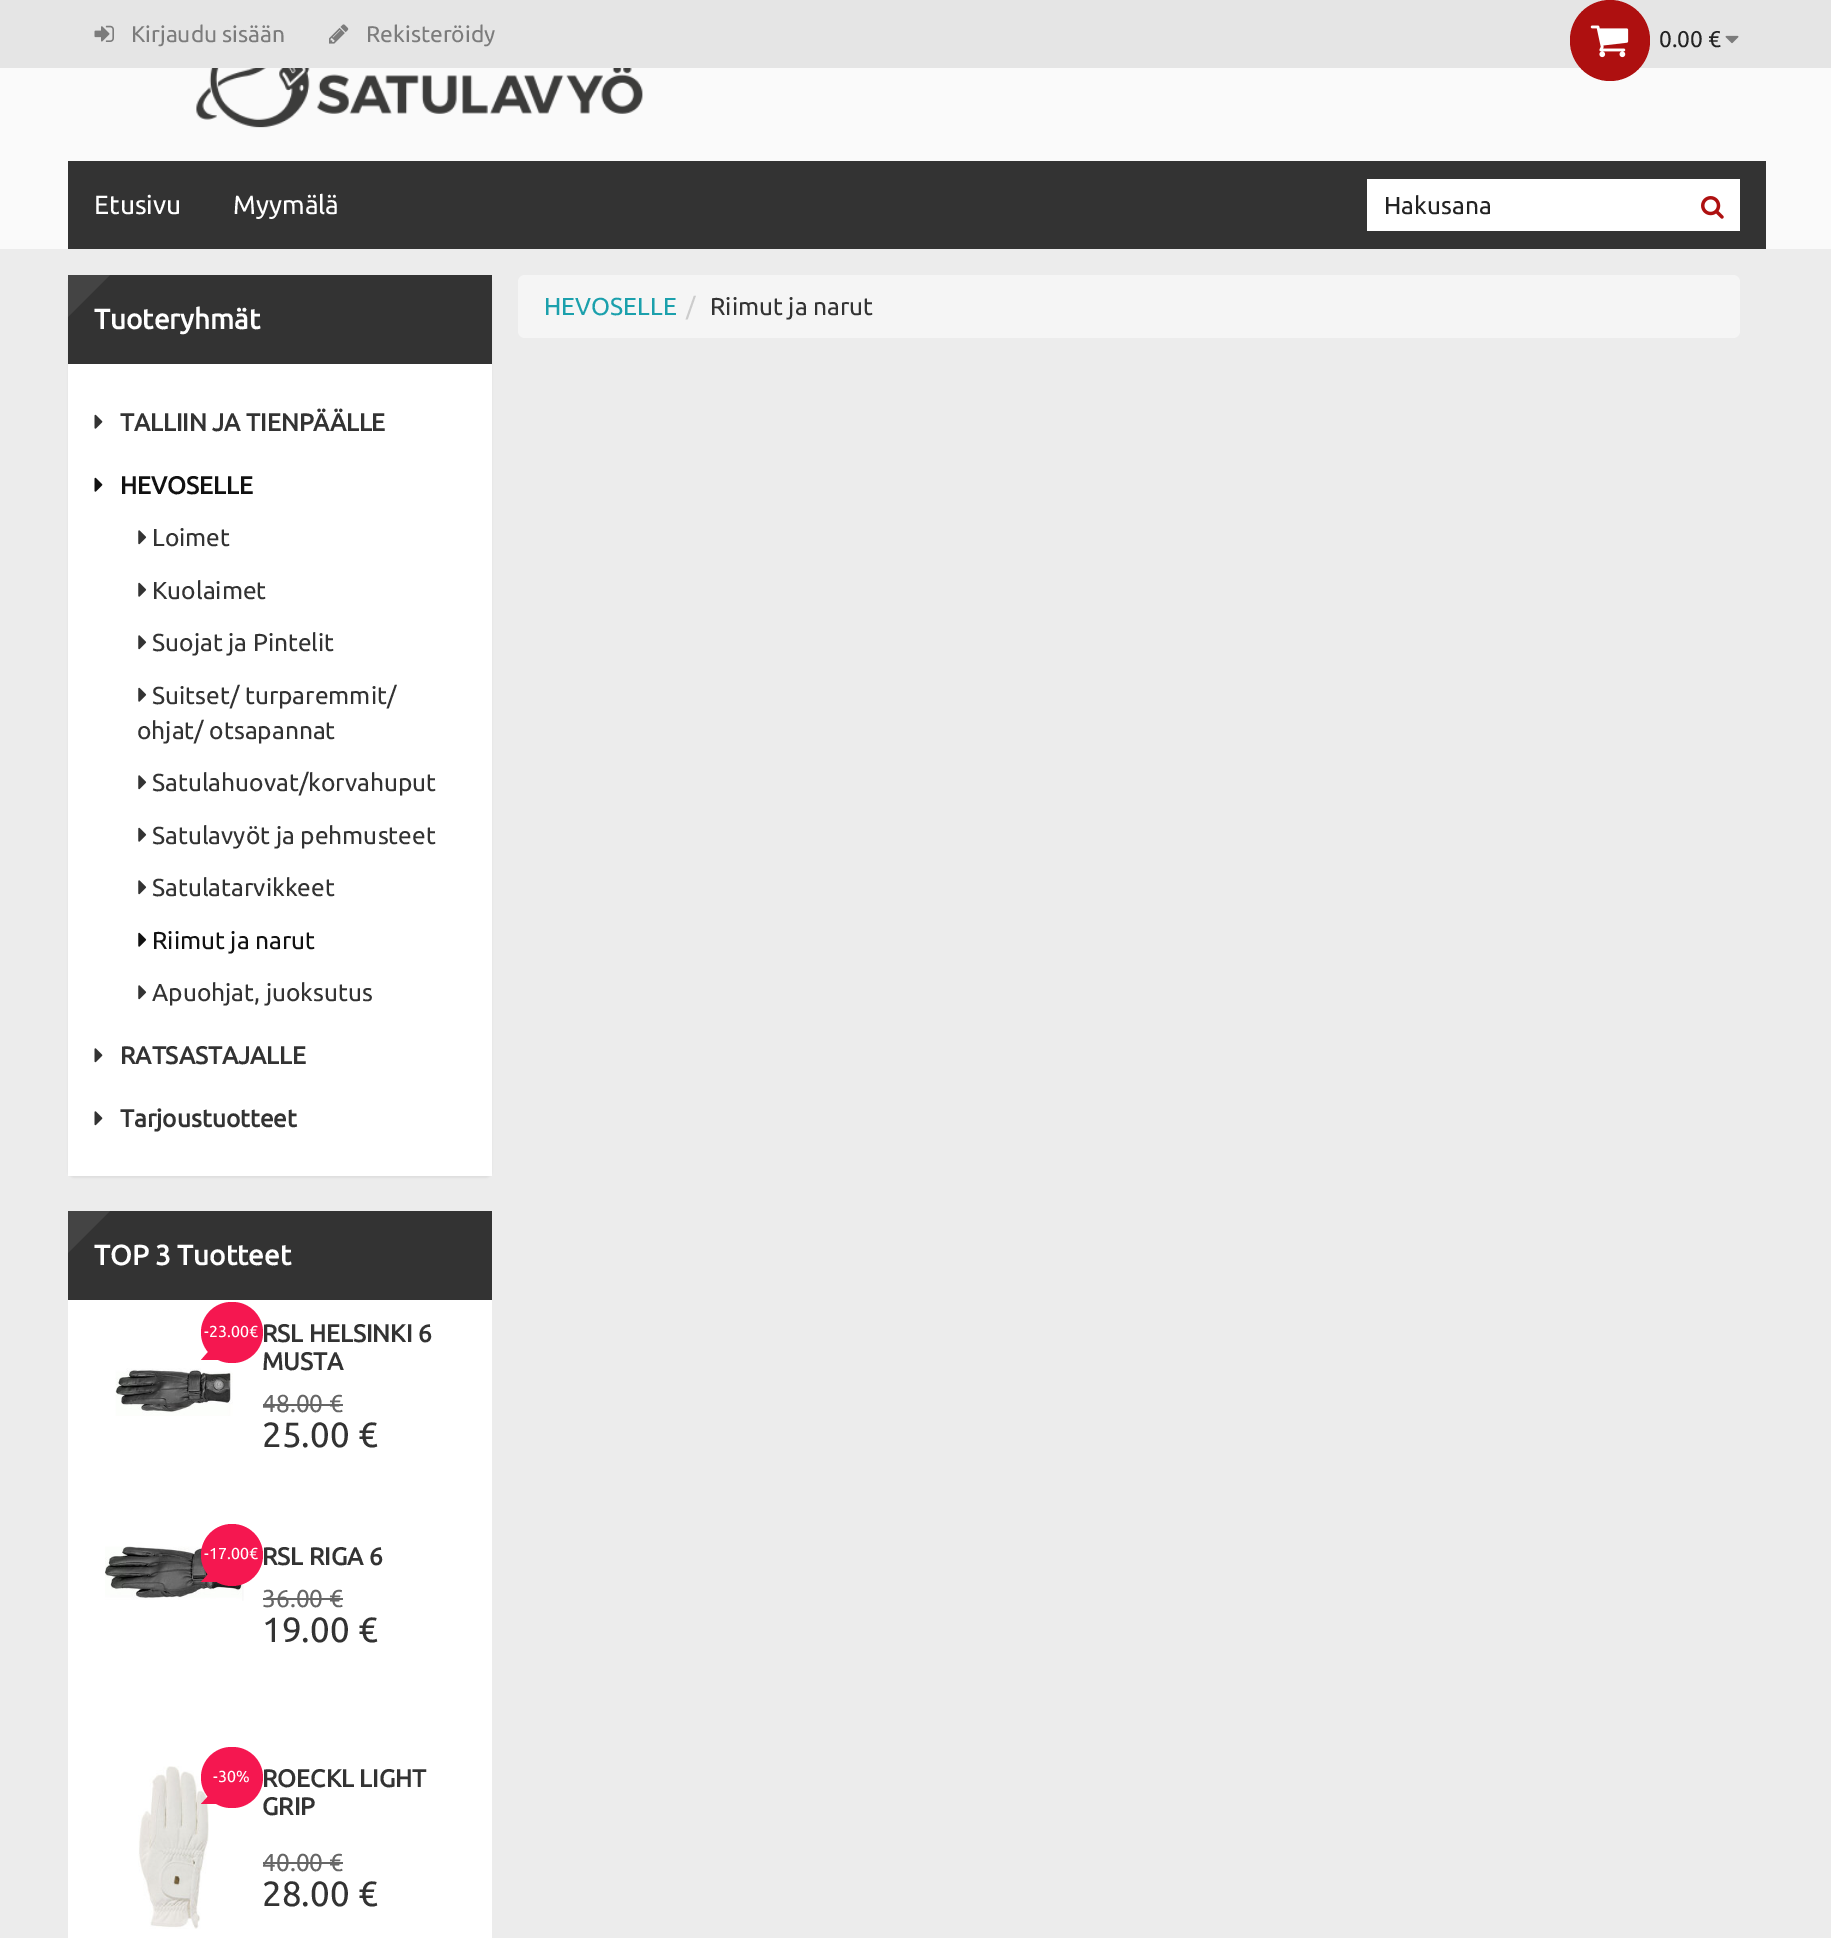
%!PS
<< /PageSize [1831 1938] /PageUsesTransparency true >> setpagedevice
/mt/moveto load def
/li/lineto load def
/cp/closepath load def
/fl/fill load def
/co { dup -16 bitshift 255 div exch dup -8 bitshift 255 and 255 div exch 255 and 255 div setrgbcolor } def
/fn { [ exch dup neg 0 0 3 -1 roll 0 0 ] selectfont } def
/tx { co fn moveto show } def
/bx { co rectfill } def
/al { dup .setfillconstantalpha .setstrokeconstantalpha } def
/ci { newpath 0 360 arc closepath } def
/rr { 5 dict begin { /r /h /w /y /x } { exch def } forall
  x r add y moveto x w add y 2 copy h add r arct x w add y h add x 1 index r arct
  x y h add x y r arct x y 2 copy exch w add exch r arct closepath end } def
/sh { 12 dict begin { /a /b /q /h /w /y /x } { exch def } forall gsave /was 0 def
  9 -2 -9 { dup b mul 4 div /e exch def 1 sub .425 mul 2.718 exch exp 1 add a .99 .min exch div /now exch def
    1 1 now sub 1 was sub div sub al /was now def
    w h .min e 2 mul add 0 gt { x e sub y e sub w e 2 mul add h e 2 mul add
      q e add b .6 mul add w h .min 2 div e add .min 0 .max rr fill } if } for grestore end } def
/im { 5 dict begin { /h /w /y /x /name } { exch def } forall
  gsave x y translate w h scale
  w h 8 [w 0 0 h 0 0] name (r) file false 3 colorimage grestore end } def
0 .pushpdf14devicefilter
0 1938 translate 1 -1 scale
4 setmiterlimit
0 0 1831 1938 16#ECECEC bx
0 68 1831 181 16#FAFAFA bx
0 0 1831 68 16#E5E5E5 bx
(media/1.raw) 94 25 20 17 im
(media/2.raw) 329 24 20 20 im
16#AE1010 co
1570 0 80 81 40 rr fl
(media/3.raw) 1590 25 39 33 im
(media/4.raw) 1725 35 14 9 im
(media/5.raw) 196 68 447 60 im
68 161 1698 88 16#333333 bx
1367 179 373 52 16#FFFFFF bx
(media/6.raw) 1701 196 23 23 im
16#000000 co
68 277 424 901 7 1 .05 sh
68 275 424 89 16#333333 bx
68 364 424 812 16#FFFFFF bx
(media/7.raw) 94 414 9 15 im
(media/8.raw) 94 477 9 15 im
(media/9.raw) 138 530 9 15 im
(media/10.raw) 138 582 9 15 im
(media/9.raw) 138 635 9 15 im
(media/10.raw) 138 687 9 15 im
(media/9.raw) 138 775 9 15 im
(media/10.raw) 138 827 9 15 im
(media/9.raw) 138 880 9 15 im
(media/11.raw) 138 932 9 15 im
(media/9.raw) 138 985 9 15 im
(media/12.raw) 94 1048 9 15 im
(media/12.raw) 94 1111 9 15 im
68 1300 424 638 16#FFFFFF bx
68 1211 424 89 16#333333 bx
16#F51750 co
201 1302 62 61 30.5 rr fl
222 1360 mt 201 1360 li 212 1347.5 li cp fl
(media/13.raw) 115 1368 118 48 im
263 1404 80 2 16#666666 bx
(media/14.raw) 105 1541 139 60 im
16#F51750 co
232 1555 31 ci fl
222 1582 mt 201 1582 li 212 1570 li cp fl
263 1598 80 2 16#666666 bx
(media/15.raw) 138 1766 71 163 im
16#F51750 co
201 1747 62 61 30.5 rr fl
222 1804 mt 201 1804 li 212 1792 li cp fl
263 1862 80 2 16#666666 bx
16#F5F5F5 co
518 275 1222 63 7 rr fl
(Kirjaudu sisään) 131 42 /Ubuntu-Regular 22.75 16#7C7C7C tx
(Rekisteröidy) 366 42 /Ubuntu-Regular 22.75 16#7C7C7C tx
(0.00 €) 1659 47 /Ubuntu-Regular 22.75 16#232323 tx
(Etusivu) 94 214 /Ubuntu-Regular 26.25 16#FFFFFF tx
(Myymälä) 233 214 /Ubuntu-Regular 26.25 16#FFFFFF tx
(Hakusana) 1384 214 /Ubuntu-Regular 24.5 16#232323 tx
(Tuoteryhmät) 94 329 /Ubuntu-Bold 28 16#FFFFFF tx
16#444444 co
68 275 mt 110 275 li 68 317 li cp fl
(TALLIIN JA TIENPÄÄLLE) 120 431 /Ubuntu-Bold 24.5 16#333333 tx
(HEVOSELLE) 120 494 /Ubuntu-Bold 24.5 16#111111 tx
(Loimet) 152 546 /Ubuntu-Regular 24.5 16#333333 tx
(Kuolaimet) 152 599 /Ubuntu-Regular 24.5 16#333333 tx
(Suojat ja Pintelit) 152 651 /Ubuntu-Regular 24.5 16#333333 tx
(Suitset/ turparemmit/) 152 704 /Ubuntu-Regular 24.5 16#333333 tx
(ohjat/ otsapannat) 137 739 /Ubuntu-Regular 24.5 16#333333 tx
(Satulahuovat/korvahuput) 152 791 /Ubuntu-Regular 24.5 16#333333 tx
(Satulavyöt ja pehmusteet) 152 844 /Ubuntu-Regular 24.5 16#333333 tx
(Satulatarvikkeet) 152 896 /Ubuntu-Regular 24.5 16#333333 tx
(Riimut ja narut) 152 949 /Ubuntu-Regular 24.5 16#111111 tx
(Apuohjat, juoksutus) 152 1001 /Ubuntu-Regular 24.5 16#333333 tx
(RATSASTAJALLE) 120 1064 /Ubuntu-Bold 24.5 16#333333 tx
(Tarjoustuotteet) 120 1127 /Ubuntu-Bold 24.5 16#333333 tx
(TOP 3 Tuotteet) 94 1265 /Ubuntu-Bold 28 16#FFFFFF tx
16#444444 co
68 1211 mt 110 1211 li 68 1253 li cp fl
(-23.00€) 204 1337 /Ubuntu-Regular 16 16#FFFFFF tx
(RSL HELSINKI 6) 262 1342 /Ubuntu-Bold 24.5 16#333333 tx
(MUSTA) 262 1370 /Ubuntu-Bold 24.5 16#333333 tx
(48.00 €) 262 1412 /Ubuntu-Regular 24.5 16#666666 tx
(25.00 €) 262 1447 /Ubuntu-Regular 35 16#333333 tx
(-17.00€) 204 1559 /Ubuntu-Regular 16 16#FFFFFF tx
(RSL RIGA 6) 262 1565 /Ubuntu-Bold 24.5 16#333333 tx
(36.00 €) 262 1607 /Ubuntu-Regular 24.5 16#666666 tx
(19.00 €) 262 1642 /Ubuntu-Regular 35 16#333333 tx
(-30%) 213 1782 /Ubuntu-Regular 16 16#FFFFFF tx
(ROECKL LIGHT) 262 1787 /Ubuntu-Bold 24.5 16#333333 tx
(GRIP) 262 1815 /Ubuntu-Bold 24.5 16#333333 tx
(40.00 €) 262 1871 /Ubuntu-Regular 24.5 16#666666 tx
(28.00 €) 262 1906 /Ubuntu-Regular 35 16#333333 tx
(HEVOSELLE) 544 315 /Ubuntu-Regular 24.5 16#1BA0AC tx
(/) 686 315 /Ubuntu-Regular 24.5 16#CCCCCC tx
(Riimut ja narut) 710 315 /Ubuntu-Regular 24.5 16#333333 tx
.poppdf14devicefilter showpage
